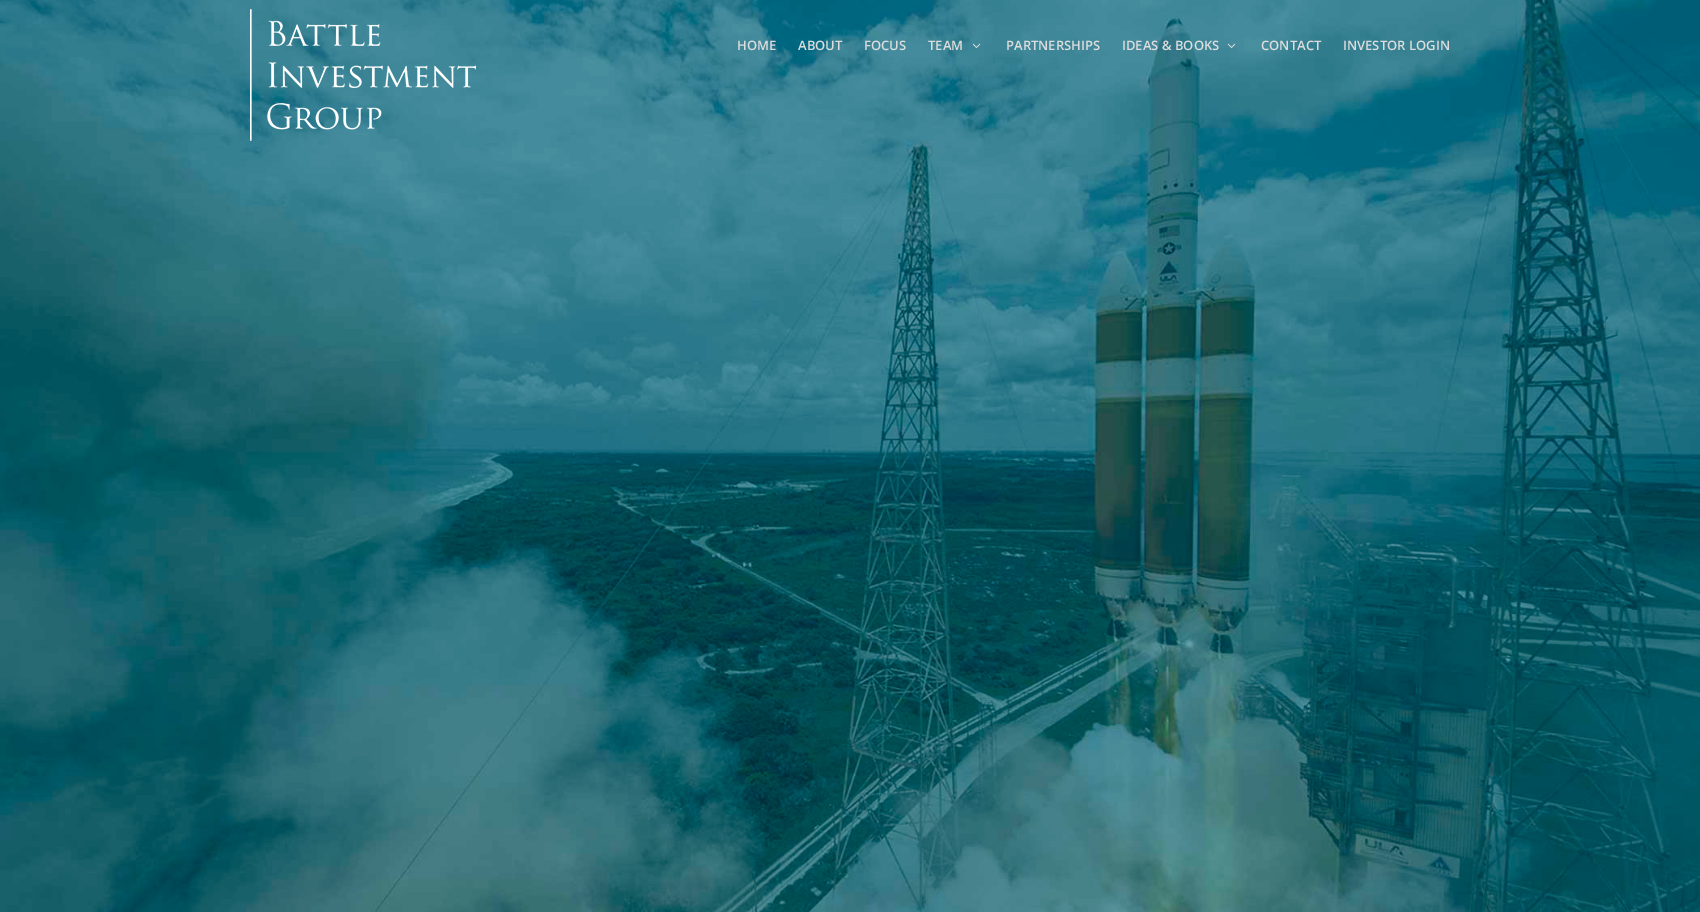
%!PS
<< /PageSize [1700 912] >> setpagedevice
/co { dup -16 bitshift 255 div exch dup -8 bitshift 255 and 255 div exch 255 and 255 div setrgbcolor } def
/fn { [ exch dup neg 0 0 3 -1 roll 0 0 ] selectfont } def
/tx { co fn moveto show } def
/bx { co rectfill } def
/im { 5 dict begin { /h /w /y /x /name } { exch def } forall
  gsave x y translate w h scale
  w h 8 [w 0 0 h 0 0] name (r) file false 3 colorimage grestore end } def
0 912 translate 1 -1 scale
4 setmiterlimit
0 0 1700 912 16#FFFFFF bx
(media/1.raw) 0 0 1700 912 im
(media/2.raw) 250 9 226 132 im
(media/3.raw) 972 43 9 5 im
(media/4.raw) 1227 43 9 5 im
(HOME) 737 50 /OpenSans-SemiBold 13 16#DDDDDD tx
(ABOUT) 798 50 /OpenSans-SemiBold 13 16#DDDDDD tx
(FOCUS) 864 50 /OpenSans-SemiBold 13 16#DDDDDD tx
(TEAM) 928 50 /OpenSans-SemiBold 13 16#DDDDDD tx
(PARTNERSHIPS) 1006 50 /OpenSans-SemiBold 13 16#DDDDDD tx
(IDEAS & BOOKS) 1122 50 /OpenSans-SemiBold 13 16#DDDDDD tx
(CONTACT) 1261 50 /OpenSans-SemiBold 13 16#DDDDDD tx
(INVESTOR LOGIN) 1343 50 /OpenSans-SemiBold 13 16#DDDDDD tx
showpage
